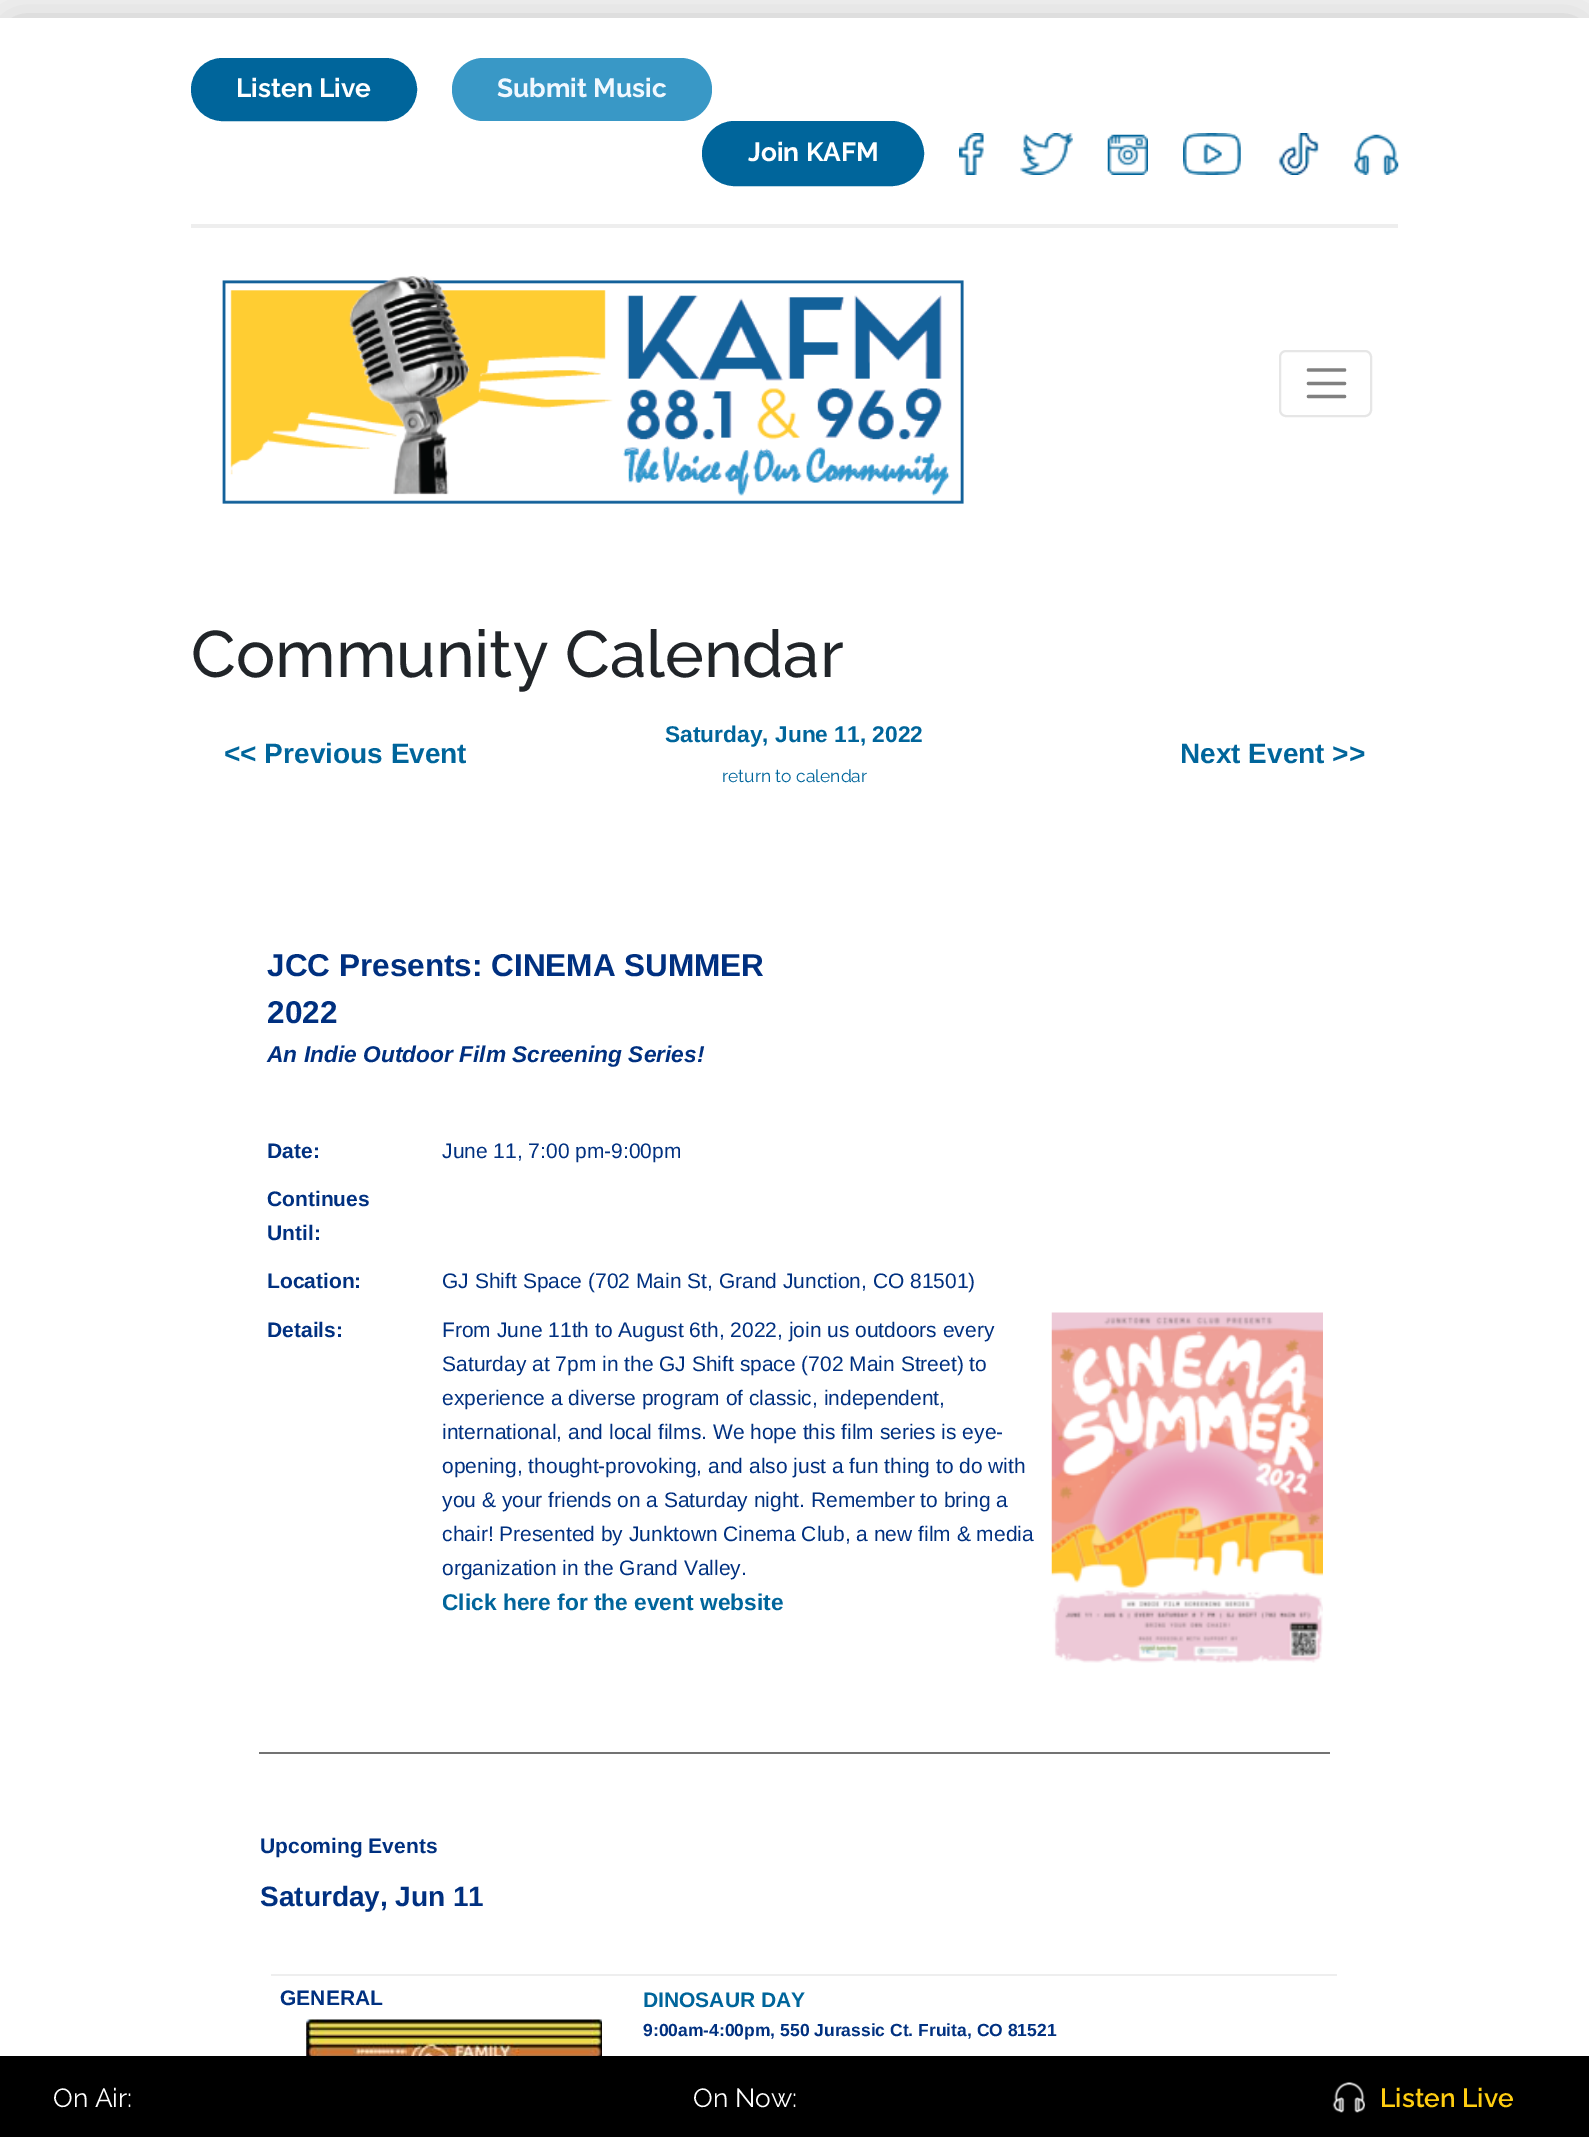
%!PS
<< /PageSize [1589 2137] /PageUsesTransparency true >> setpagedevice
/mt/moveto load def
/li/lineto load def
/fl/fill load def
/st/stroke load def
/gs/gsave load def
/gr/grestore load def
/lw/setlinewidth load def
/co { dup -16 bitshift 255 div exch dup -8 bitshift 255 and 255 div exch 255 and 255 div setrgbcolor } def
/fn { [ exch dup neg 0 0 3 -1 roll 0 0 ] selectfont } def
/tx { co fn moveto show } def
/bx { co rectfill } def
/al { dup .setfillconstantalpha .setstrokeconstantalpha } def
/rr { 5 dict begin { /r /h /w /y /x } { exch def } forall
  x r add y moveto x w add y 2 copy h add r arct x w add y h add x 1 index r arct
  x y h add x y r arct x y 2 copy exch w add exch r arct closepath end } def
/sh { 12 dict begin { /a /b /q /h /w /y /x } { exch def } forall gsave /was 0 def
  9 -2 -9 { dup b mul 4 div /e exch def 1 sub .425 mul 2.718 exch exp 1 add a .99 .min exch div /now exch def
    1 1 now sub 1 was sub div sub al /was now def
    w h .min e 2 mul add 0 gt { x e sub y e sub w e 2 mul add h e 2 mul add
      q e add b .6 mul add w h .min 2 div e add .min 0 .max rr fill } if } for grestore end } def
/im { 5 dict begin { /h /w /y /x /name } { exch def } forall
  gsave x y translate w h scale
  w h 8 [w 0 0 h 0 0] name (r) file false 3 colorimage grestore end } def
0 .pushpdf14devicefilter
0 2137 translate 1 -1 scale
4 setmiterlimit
0 0 1589 2137 16#EEEEEE bx
16#838383 co
18 35 1554 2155 0 17.5 1 sh
0 18 1589 2038 16#FFFFFF bx
191 224 1207 4 16#EEEEEE bx
16#00659B co
192 59 224 61 30.5 rr gs fl gr
2 lw
st
16#3998C6 co
452 58 260 63 31.5 rr fl
16#00659B co
703 122 220 63 31.5 rr gs fl gr
st
(media/1.raw) 959 133 25 42 im
(media/2.raw) 1020 133 53 42 im
(media/3.raw) 1107 134 41 41 im
(media/4.raw) 1183 133 58 42 im
(media/5.raw) 1278 133 41 42 im
(media/6.raw) 1354 134 45 41 im
(media/7.raw) 222 276 742 228 im
16#E6E6E6 co
1280 351 91 65 6 rr st
16#808080 co
3.3 lw
1 setlinecap
1308.5 370 mt 1344.5 370 li 1308.5 383.5 mt 1344.5 383.5 li 1308.5 396.5 mt 1344.5 396.5 li st
(media/8.raw) 1051 1312 272 351 im
259 1752 1071 2 16#737373 bx
271 1974 1066 2 16#EEEEEE bx
(media/9.raw) 306 2019 296 37 im
0 2056 1589 81 16#000000 bx
(media/10.raw) 1332 2082 33 31 im
(Listen Live) 236 97 /Raleway-Bold 26.25 16#FFFFFF tx
(Submit Music) 497 97 /Raleway-Bold 26.25 16#F0F8FF tx
(Join KAFM) 748 161 /Raleway-Bold 26.25 16#FFFFFF tx
(Community Calendar) 191 677 /Raleway-Medium 65.6 16#212529 tx
(<< Previous Event) 224 763 /LiberationSans-Bold 28 16#00659B tx
(Saturday, June 11, 2022) 665 742 /LiberationSans-Bold 22.75 16#00659B tx
(return to calendar) 722 782 /Raleway-Regular 17.5 16#00659B tx
(Next Event >>) 1180 763 /LiberationSans-Bold 28 16#00659B tx
(JCC Presents: CINEMA SUMMER) 267 976 /LiberationSans-Bold 31.5 16#003080 tx
(2022) 267 1023 /LiberationSans-Bold 31.5 16#003080 tx
(An Indie Outdoor Film Screening Series!) 267 1062 /LiberationSans-BoldItalic 22.75 16#003080 tx
(Date:) 267 1158 /LiberationSans-Bold 21 16#003080 tx
(June 11, 7:00 pm-9:00pm) 442 1158 /LiberationSans-Regular 21 16#003080 tx
(Continues) 267 1206 /LiberationSans-Bold 21 16#003080 tx
(Until:) 267 1240 /LiberationSans-Bold 21 16#003080 tx
(Location:) 267 1288 /LiberationSans-Bold 21 16#003080 tx
(GJ Shift Space \(702 Main St, Grand Junction, CO 81501\)) 442 1288 /LiberationSans-Regular 21 16#003080 tx
(Details:) 267 1337 /LiberationSans-Bold 21 16#003080 tx
(From June 11th to August 6th, 2022, join us outdoors every) 442 1337 /LiberationSans-Regular 21 16#003080 tx
(Saturday at 7pm in the GJ Shift space \(702 Main Street\) to) 442 1371 /LiberationSans-Regular 21 16#003080 tx
(experience a diverse program of classic, independent,) 442 1405 /LiberationSans-Regular 21 16#003080 tx
(international, and local films. We hope this film series is eye-) 442 1439 /LiberationSans-Regular 21 16#003080 tx
(opening, thought-provoking, and also just a fun thing to do with) 442 1473 /LiberationSans-Regular 21 16#003080 tx
(you & your friends on a Saturday night. Remember to bring a) 442 1507 /LiberationSans-Regular 21 16#003080 tx
(chair! Presented by Junktown Cinema Club, a new film & media) 442 1541 /LiberationSans-Regular 21 16#003080 tx
(organization in the Grand Valley.) 442 1575 /LiberationSans-Regular 21 16#003080 tx
(Click here for the event website) 442 1610 /LiberationSans-Bold 22.75 16#00659B tx
(Upcoming Events) 260 1853 /LiberationSans-Bold 21 16#003080 tx
(Saturday, Jun 11) 260 1906 /LiberationSans-Bold 28 16#003080 tx
(GENERAL) 280 2005 /LiberationSans-Bold 21 16#003080 tx
(DINOSAUR DAY) 643 2007 /LiberationSans-Bold 21 16#00659B tx
(9:00am-4:00pm, 550 Jurassic Ct. Fruita, CO 81521) 643 2036 /LiberationSans-Bold 17.5 16#003080 tx
(On Air:) 53 2107 /Raleway-Regular 26.25 16#FFFFFF tx
(On Now:) 693 2107 /Raleway-Regular 26.25 16#FFFFFF tx
(Listen Live) 1380 2107 /Raleway-SemiBold 26.25 16#FFCD10 tx
.poppdf14devicefilter showpage
